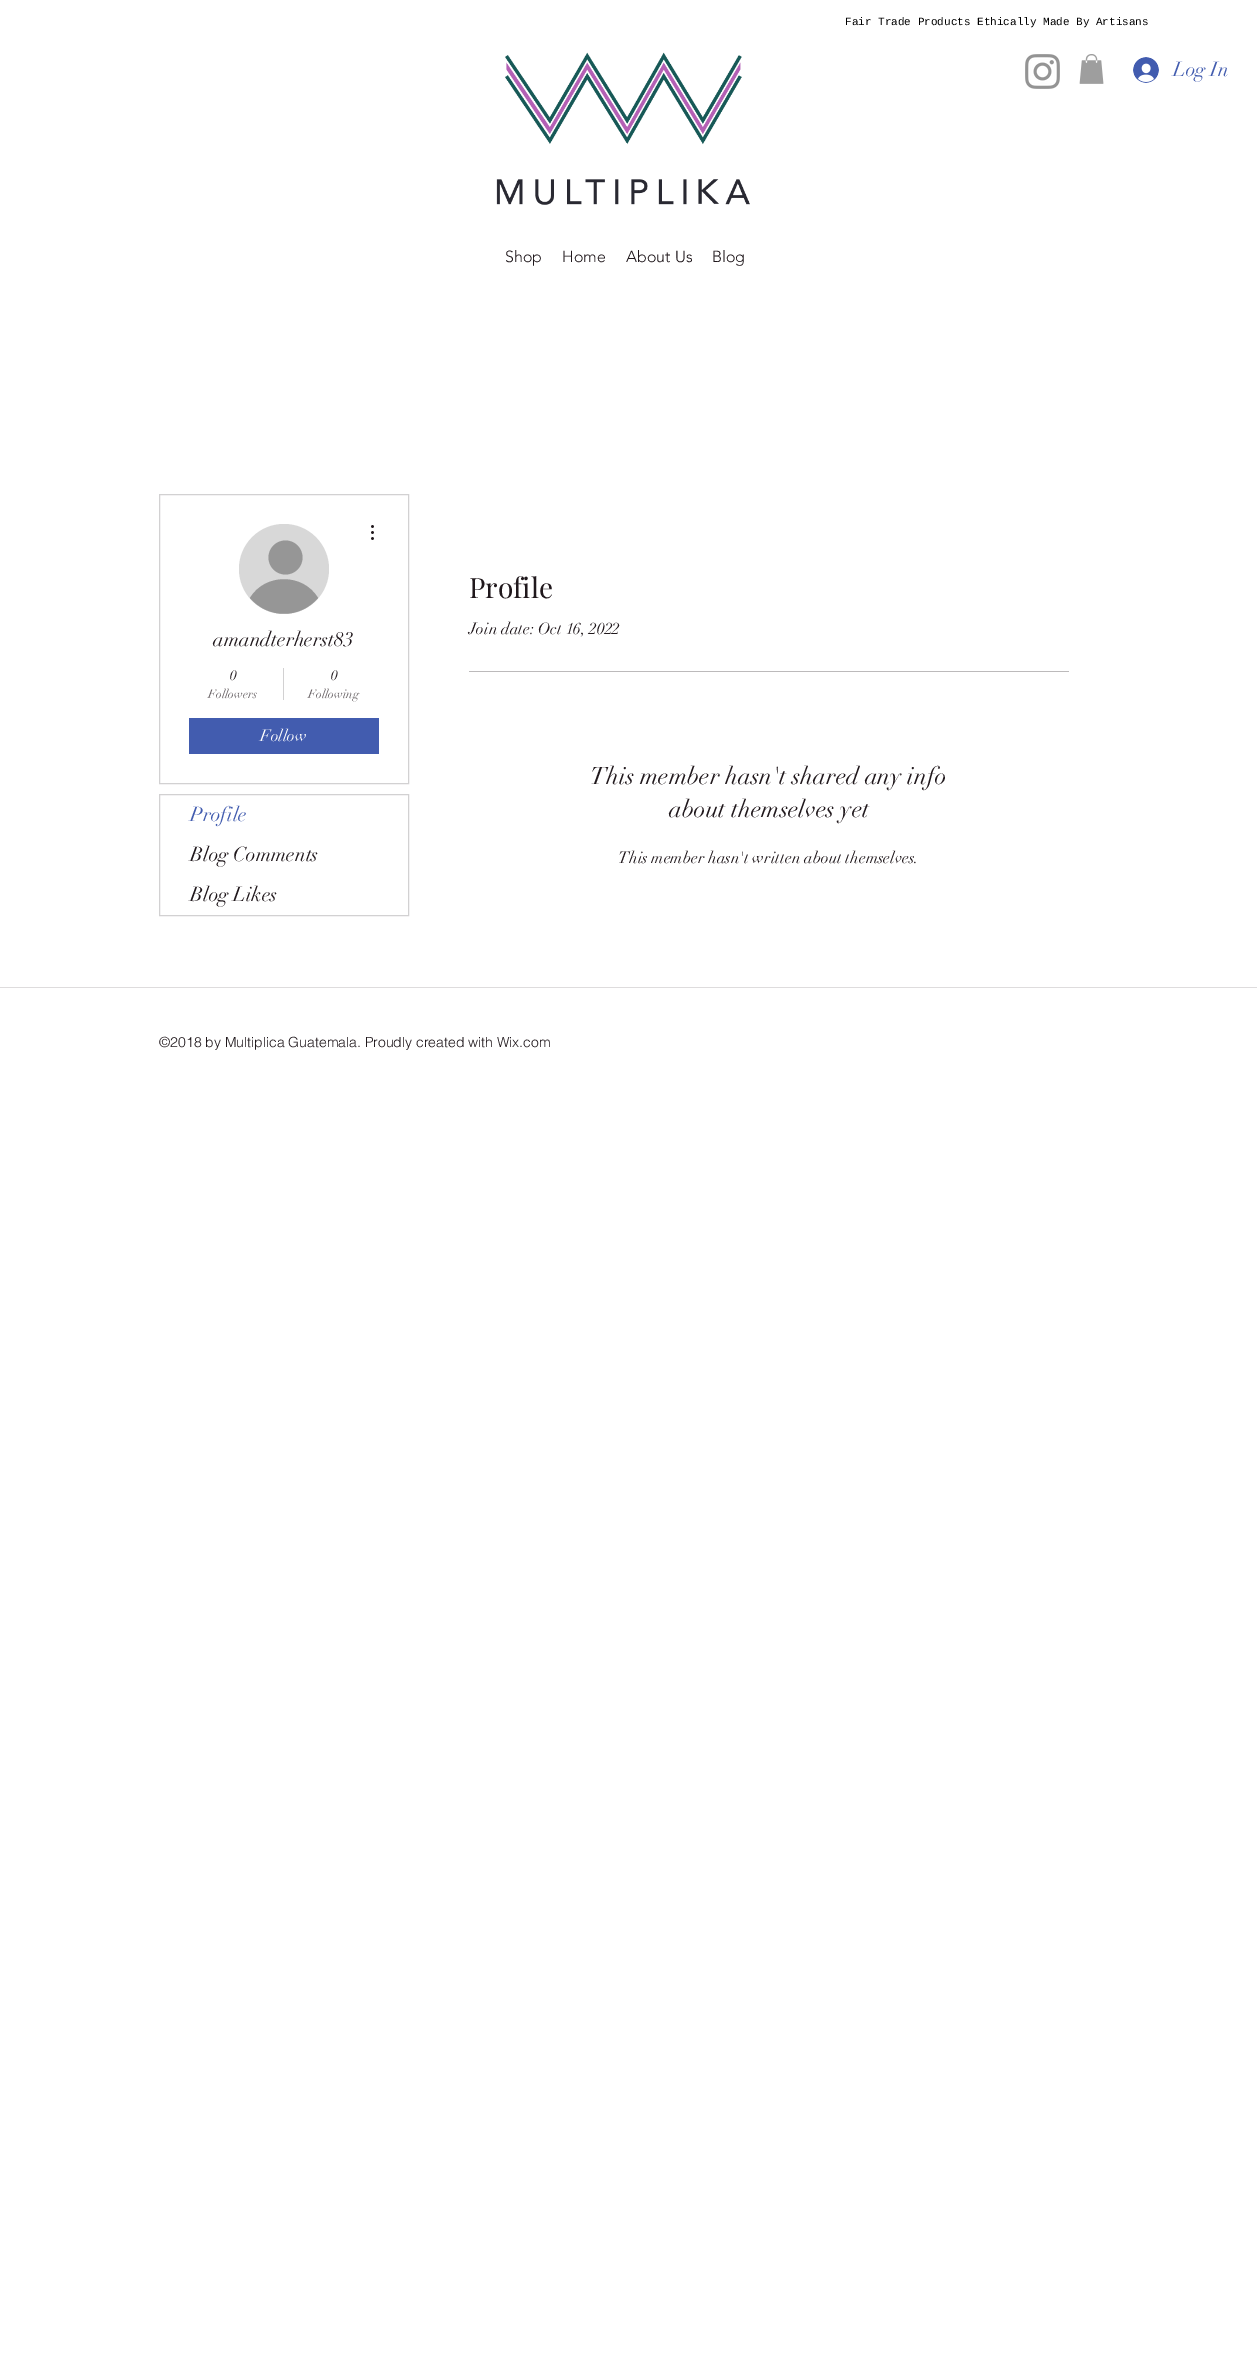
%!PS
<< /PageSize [1257 2360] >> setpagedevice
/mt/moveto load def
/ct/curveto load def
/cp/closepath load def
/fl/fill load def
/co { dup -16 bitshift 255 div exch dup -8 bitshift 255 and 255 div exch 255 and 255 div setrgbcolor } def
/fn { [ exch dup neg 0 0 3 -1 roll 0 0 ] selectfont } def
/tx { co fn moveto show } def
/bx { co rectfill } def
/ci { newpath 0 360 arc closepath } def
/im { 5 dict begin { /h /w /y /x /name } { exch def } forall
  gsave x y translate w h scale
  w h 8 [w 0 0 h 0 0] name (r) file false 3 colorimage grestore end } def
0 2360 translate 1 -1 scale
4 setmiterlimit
0 0 1257 2360 16#FFFFFF bx
(media/1.raw) 496 52 254 153 im
(media/2.raw) 1025 54 35 35 im
(media/3.raw) 1079 54 25 30 im
(media/4.raw) 1133 57 26 26 im
16#D2D1D2 co
159.5 494.5 249 289 rectstroke
16#D8D8D8 co
284 569 45 ci fl
16#969696 co
285.5 557.5 17 ci fl
318 598 mt 300 619 268 619 250 598 ct 265 573 303 573 318 598 ct cp fl
(media/5.raw) 371 525 3 15 im
283 668 1 32 16#D2D1D2 bx
189 718 190 36 16#425CAF bx
16#D2D1D2 co
159.5 794.5 249 121 rectstroke
469 671 600 1 16#BCBABB bx
0 987 1257 1 16#DEDCDD bx
(Fair Trade Products Ethically Made By Artisans) 845 25 /LiberationMono-Regular 11 16#000000 tx
(Log In) 1173 76 /didot-Regular 20 16#425CAF tx
(Shop) 505 262 /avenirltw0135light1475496-Light 16 16#20181C tx
(Home) 562 262 /avenirltw0135light1475496-Light 16 16#20181C tx
(About Us) 626 262 /avenirltw0135light1475496-Light 16 16#20181C tx
(Blog) 712 262 /avenirltw0135light1475496-Light 16 16#20181C tx
(amandterherst83) 213 646 /didot-Regular 20 16#20181C tx
(0) 230 680 /didot-Regular 14 16#20181C tx
(Followers) 208 698 /didot-Regular 12 16#635D60 tx
(0) 331 680 /didot-Regular 14 16#20181C tx
(Following) 308 698 /didot-Regular 12 16#635D60 tx
(Follow) 260 741 /didot-Regular 16 16#FFFFFF tx
(Profile) 190 821 /didot-Regular 20 16#425CAF tx
(Blog Comments) 190 861 /didot-Regular 20 16#20181C tx
(Blog Likes) 190 901 /didot-Regular 20 16#20181C tx
(Profile) 469 598 /PlayfairDisplay-Regular 28 16#20181C tx
(Join date: Oct 16, 2022) 469 634 /didot-Regular 16 16#20181C tx
(This member hasn't shared any info) 590 784 /didot-Regular 24 16#20181C tx
(about themselves yet) 669 817 /didot-Regular 24 16#20181C tx
(This member hasn't written about themselves.) 618 863 /didot-Regular 16 16#20181C tx
(©2018 by Multiplica Guatemala. Proudly created with Wix.com) 159 1047 /helvetica-Light 14 16#20181C tx
showpage
